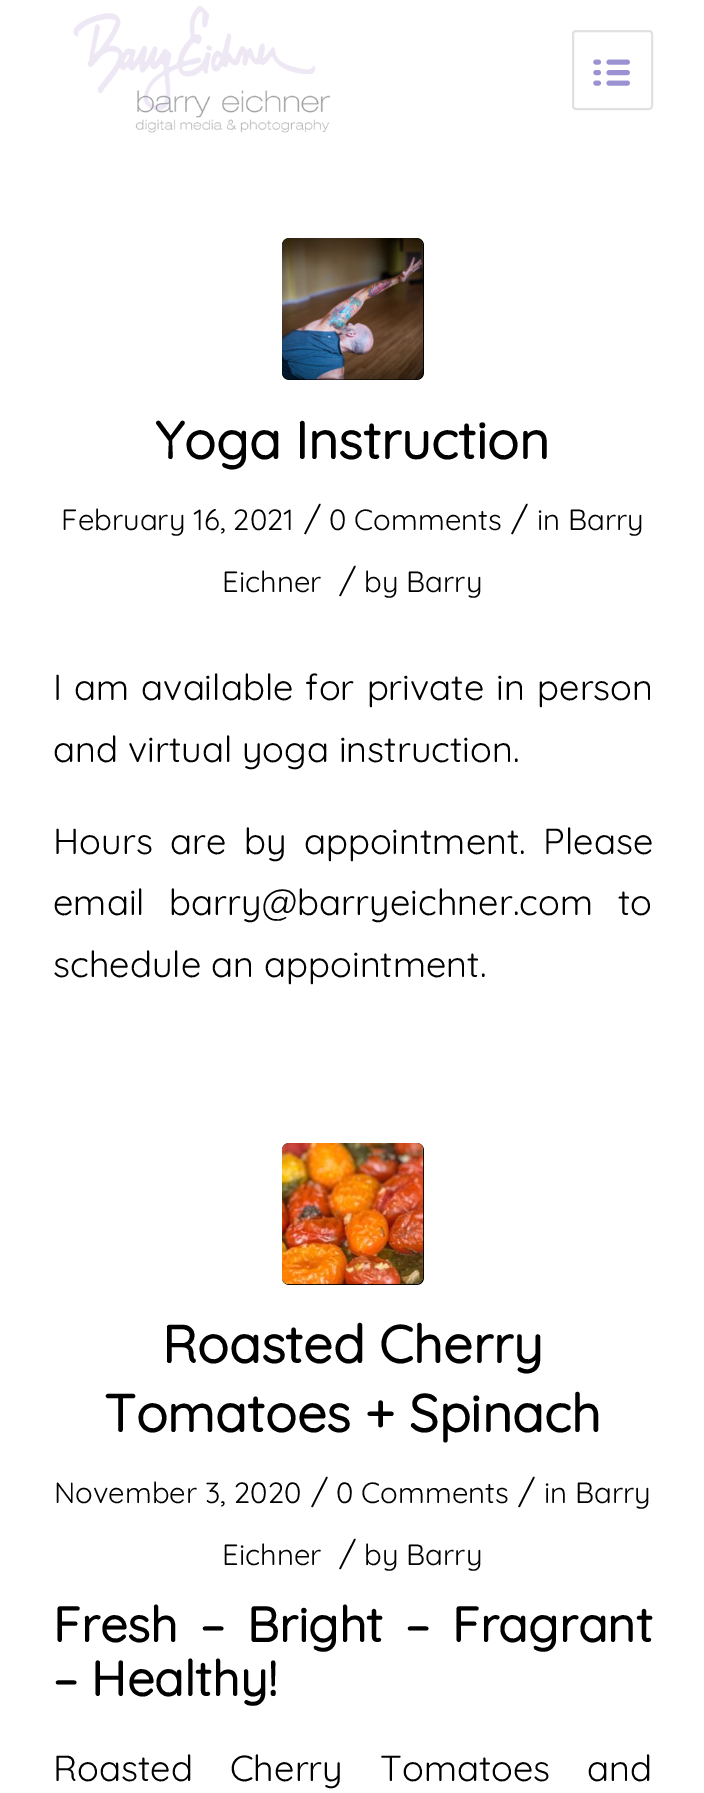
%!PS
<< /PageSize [704 1793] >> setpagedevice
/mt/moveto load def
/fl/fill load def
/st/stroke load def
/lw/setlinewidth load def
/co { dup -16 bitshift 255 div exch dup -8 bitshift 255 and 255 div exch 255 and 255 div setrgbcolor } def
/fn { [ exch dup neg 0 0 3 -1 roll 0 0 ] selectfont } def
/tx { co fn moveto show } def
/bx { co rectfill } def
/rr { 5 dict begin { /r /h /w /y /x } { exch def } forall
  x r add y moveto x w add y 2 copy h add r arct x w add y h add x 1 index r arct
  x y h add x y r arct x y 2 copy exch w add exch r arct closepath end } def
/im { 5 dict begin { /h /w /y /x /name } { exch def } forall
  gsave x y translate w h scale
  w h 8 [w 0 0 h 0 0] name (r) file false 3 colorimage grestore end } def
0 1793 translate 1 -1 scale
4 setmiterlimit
0 0 704 1793 16#FFFFFF bx
(media/1.raw) 73 6 257 127 im
16#E1E1E1 co
2 lw
573 31 79 78 3 rr st
(media/2.raw) 593 59 37 27 im
16#000000 co
282 238 142 142 7 rr fl
(media/3.raw) 282 238 142 142 im
282 1143 142 142 7 rr fl
(media/4.raw) 282 1143 142 142 im
(Yoga Instruction) 155 459 /Quicksand-Bold 52.5 16#000000 tx
(February 16, 2021) 61 530 /Quicksand-Light 29.25 16#000000 tx
(/) 304 530 /Quicksand-Light 33 16#000000 tx
(0 Comments) 329 530 /Quicksand-Light 29.25 16#000000 tx
(/) 511 530 /Quicksand-Light 33 16#000000 tx
(in Barry) 537 530 /Quicksand-Light 29.25 16#000000 tx
(Eichner) 222 592 /Quicksand-Light 29.25 16#000000 tx
(/) 339 592 /Quicksand-Light 33 16#000000 tx
(by Barry) 364 592 /Quicksand-Light 29.25 16#000000 tx
/Quicksand-Light 36.25 fn
53 700 mt 2.25 0 32 (I am available for private in person) widthshow
(and virtual yoga instruction.) 53 762 /Quicksand-Light 36.25 16#000000 tx
53 854 mt 7.5 0 32 (Hours are by appointment. Please) widthshow
53 915 mt 15 0 32 (email barry@barryeichner.com to) widthshow
(schedule an appointment.) 53 977 /Quicksand-Light 36.25 16#000000 tx
(Roasted Cherry) 162 1363 /Quicksand-Bold 52.5 16#000000 tx
(Tomatoes + Spinach) 104 1432 /Quicksand-Bold 52.5 16#000000 tx
(November 3, 2020) 54 1503 /Quicksand-Light 29.25 16#000000 tx
(/) 311 1503 /Quicksand-Light 33 16#000000 tx
(0 Comments) 336 1503 /Quicksand-Light 29.25 16#000000 tx
(/) 518 1503 /Quicksand-Light 33 16#000000 tx
(in Barry) 544 1503 /Quicksand-Light 29.25 16#000000 tx
(Eichner) 222 1565 /Quicksand-Light 29.25 16#000000 tx
(/) 339 1565 /Quicksand-Light 33 16#000000 tx
(by Barry) 364 1565 /Quicksand-Light 29.25 16#000000 tx
/Quicksand-Bold 49 fn
53 1642 mt 8.5 0 32 (Fresh – Bright – Fragrant) widthshow
(– Healthy!) 53 1696 /Quicksand-Bold 49 16#000000 tx
/Quicksand-Light 36.25 fn
53 1781 mt 27 0 32 (Roasted Cherry Tomatoes and) widthshow
showpage
